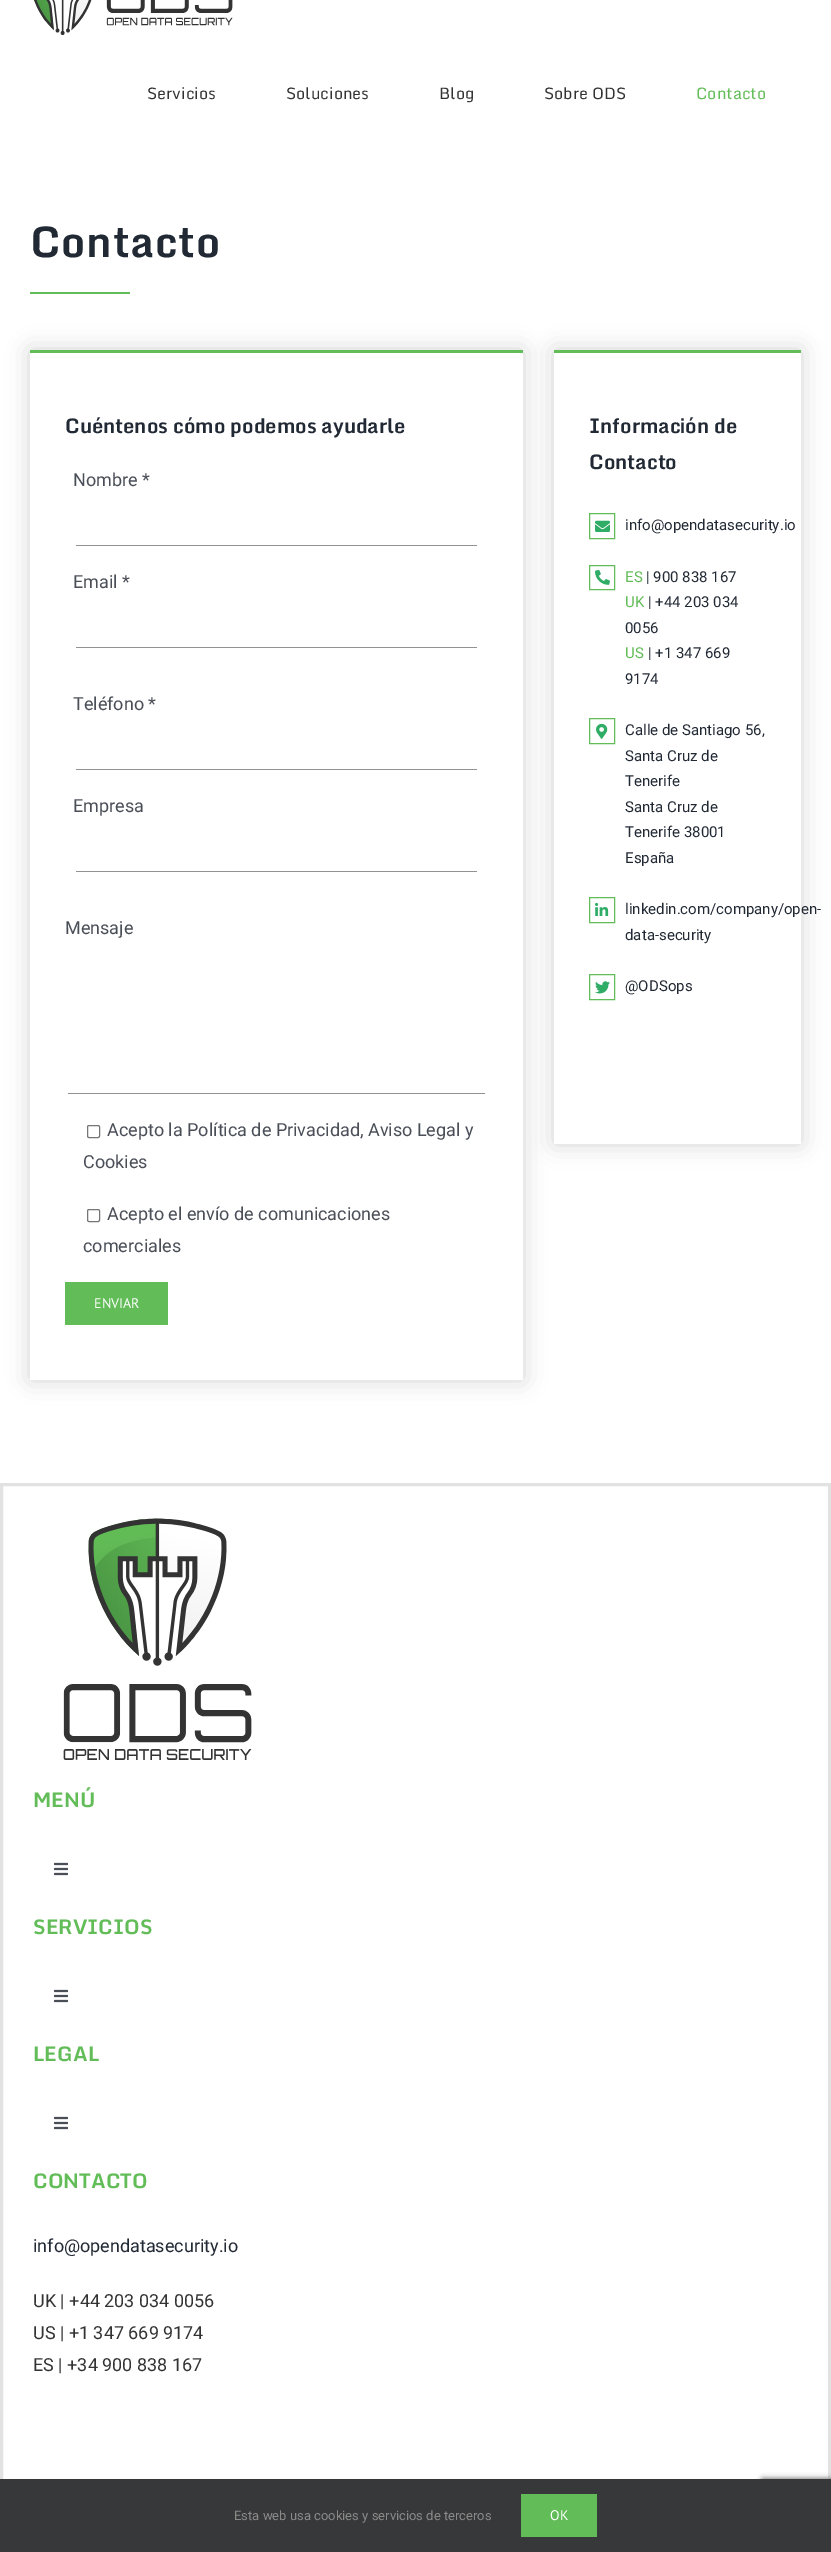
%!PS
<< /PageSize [831 2552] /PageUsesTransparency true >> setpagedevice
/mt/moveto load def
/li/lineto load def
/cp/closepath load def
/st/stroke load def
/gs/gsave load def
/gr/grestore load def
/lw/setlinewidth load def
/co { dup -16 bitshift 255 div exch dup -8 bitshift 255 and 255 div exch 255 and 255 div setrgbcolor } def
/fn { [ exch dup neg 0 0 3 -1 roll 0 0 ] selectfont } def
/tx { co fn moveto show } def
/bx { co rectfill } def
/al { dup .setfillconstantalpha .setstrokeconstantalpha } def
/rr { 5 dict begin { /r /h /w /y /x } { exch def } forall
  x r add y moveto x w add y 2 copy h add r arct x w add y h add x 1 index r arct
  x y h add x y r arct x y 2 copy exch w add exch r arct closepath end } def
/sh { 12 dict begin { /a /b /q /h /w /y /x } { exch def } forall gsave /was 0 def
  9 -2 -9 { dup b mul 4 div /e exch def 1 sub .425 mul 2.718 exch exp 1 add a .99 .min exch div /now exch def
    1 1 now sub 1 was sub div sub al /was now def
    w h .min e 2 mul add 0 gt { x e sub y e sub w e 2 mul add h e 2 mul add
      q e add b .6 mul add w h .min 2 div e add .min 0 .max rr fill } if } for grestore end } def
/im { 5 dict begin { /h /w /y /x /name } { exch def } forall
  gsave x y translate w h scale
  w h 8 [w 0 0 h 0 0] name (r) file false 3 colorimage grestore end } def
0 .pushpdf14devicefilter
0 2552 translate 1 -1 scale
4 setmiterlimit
0 0 831 2552 16#FFFFFF bx
(media/1.raw) 34 0 199 35 im
30 292 100 2 16#62BC57 bx
gs
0 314 mt 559 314 li 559 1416 li 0 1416 li cp 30 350 mt 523 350 li 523 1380 li 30 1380 li cp eoclip newpath
16#000000 co
30 350 493 1030 0 11.5 .17 sh
gr
30 350 493 3 16#62BC57 bx
76 545 401 1 16#929292 bx
76 647 401 1 16#929292 bx
76 769 401 1 16#929292 bx
76 871 401 1 16#929292 bx
68 1093 417 1 16#929292 bx
16#767676 co
87.5 1125.5 12 12 1.5 rr st
87.5 1209.5 12 12 1.5 rr st
65 1282 103 43 16#62BC57 bx
gs
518 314 mt 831 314 li 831 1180 li 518 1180 li cp 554 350 mt 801 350 li 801 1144 li 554 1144 li cp eoclip newpath
16#000000 co
554 350 247 794 0 11.5 .17 sh
gr
554 350 247 3 16#62BC57 bx
589.5 513.5 25 25 rectstroke
(media/2.raw) 595 520 15 12 im
589.5 565.5 25 24 rectstroke
(media/3.raw) 595 569 15 16 im
589.5 718.5 25 25 rectstroke
(media/4.raw) 596 723 12 16 im
589.5 897.5 25 25 rectstroke
(media/5.raw) 595 902 14 14 im
589.5 974.5 25 25 rectstroke
(media/6.raw) 595 981 15 13 im
16#E2E2E2 co
3 lw
1.5 1484.5 828 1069 rectstroke
(media/7.raw) 63 1518 189 242 im
(media/8.raw) 54 1862 14 14 im
(media/8.raw) 54 1989 14 14 im
(media/8.raw) 54 2116 14 14 im
16#808080 co
761 2478 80 60 2 2.5 1 sh
0 2479 831 73 16#363839 bx
521 2494 76 43 16#62BC57 bx
(Servicios) 147 99 /Monda-Regular 16 16#333333 tx
(Soluciones) 286 99 /Monda-Regular 16 16#333333 tx
(Blog) 439 99 /Monda-Regular 16 16#333333 tx
(Sobre ODS) 544 99 /Monda-Regular 16 16#333333 tx
(Contacto) 696 99 /Monda-Regular 16 16#62BC57 tx
/Monda-Bold 42 fn
16#212934 co
30 257 mt .75 0 (Contacto) ashow
(Cuéntenos cómo podemos ayudarle) 65 433 /Monda-Bold 20 16#212934 tx
(Nombre *) 73 486 /Roboto-Regular 18 16#4A4E57 tx
(Email *) 73 588 /Roboto-Regular 18 16#4A4E57 tx
(Teléfono *) 73 710 /Roboto-Regular 18 16#4A4E57 tx
(Empresa) 73 812 /Roboto-Regular 18 16#4A4E57 tx
(Mensaje) 65 934 /Roboto-Regular 18 16#4A4E57 tx
(Acepto la Política de Privacidad, Aviso Legal y) 107 1136 /Roboto-Regular 18 16#4A4E57 tx
(Cookies) 83 1168 /Roboto-Regular 18 16#4A4E57 tx
(Acepto el envío de comunicaciones) 107 1220 /Roboto-Regular 18 16#4A4E57 tx
(comerciales) 83 1252 /Roboto-Regular 18 16#4A4E57 tx
(ENVIAR) 94 1308 /PTSans-Regular 14 16#FFFFFF tx
(Información de) 589 433 /Monda-Bold 20 16#212934 tx
(Contacto) 589 469 /Monda-Bold 20 16#212934 tx
(info@opendatasecurity.io) 625 530 /Roboto-Regular 15 16#212934 tx
(ES) 625 582 /Roboto-Regular 15 16#62BC57 tx
(| 900 838 167) 646 582 /Roboto-Regular 15 16#212934 tx
(UK) 625 607 /Roboto-Regular 15 16#62BC57 tx
(| +44 203 034) 648 607 /Roboto-Regular 15 16#212934 tx
(0056) 625 633 /Roboto-Regular 15 16#212934 tx
(US) 625 658 /Roboto-Regular 15 16#62BC57 tx
(| +1 347 669) 648 658 /Roboto-Regular 15 16#212934 tx
(9174) 625 684 /Roboto-Regular 15 16#212934 tx
(Calle de Santiago 56,) 625 735 /Roboto-Regular 15 16#212934 tx
(Santa Cruz de) 625 761 /Roboto-Regular 15 16#212934 tx
(Tenerife) 625 786 /Roboto-Regular 15 16#212934 tx
(Santa Cruz de) 625 812 /Roboto-Regular 15 16#212934 tx
(Tenerife 38001) 625 837 /Roboto-Regular 15 16#212934 tx
(España) 625 863 /Roboto-Regular 15 16#212934 tx
(linkedin.com/company/open-) 625 914 /Roboto-Regular 15 16#212934 tx
(data-security) 625 940 /Roboto-Regular 15 16#212934 tx
(@ODSops) 625 991 /Roboto-Regular 15 16#212934 tx
(MENÚ) 33 1807 /Monda-Bold 20 16#62BC57 tx
(SERVICIOS) 33 1934 /Monda-Bold 20 16#62BC57 tx
(LEGAL) 33 2061 /Monda-Bold 20 16#62BC57 tx
(CONTACTO) 33 2188 /Monda-Bold 20 16#62BC57 tx
(info@opendatasecurity.io) 33 2252 /Roboto-Regular 18 16#212934 tx
(UK | +44 203 034 0056) 33 2307 /Roboto-Regular 18 16#333333 tx
(US | +1 347 669 9174) 33 2339 /Roboto-Regular 18 16#333333 tx
(ES | +34 900 838 167) 33 2371 /Roboto-Regular 18 16#333333 tx
(Esta web usa cookies y servicios de terceros) 234 2520 /Roboto-Regular 13 16#8C8989 tx
(OK) 550 2520 /PTSans-Regular 14 16#FFFFFF tx
.poppdf14devicefilter showpage
